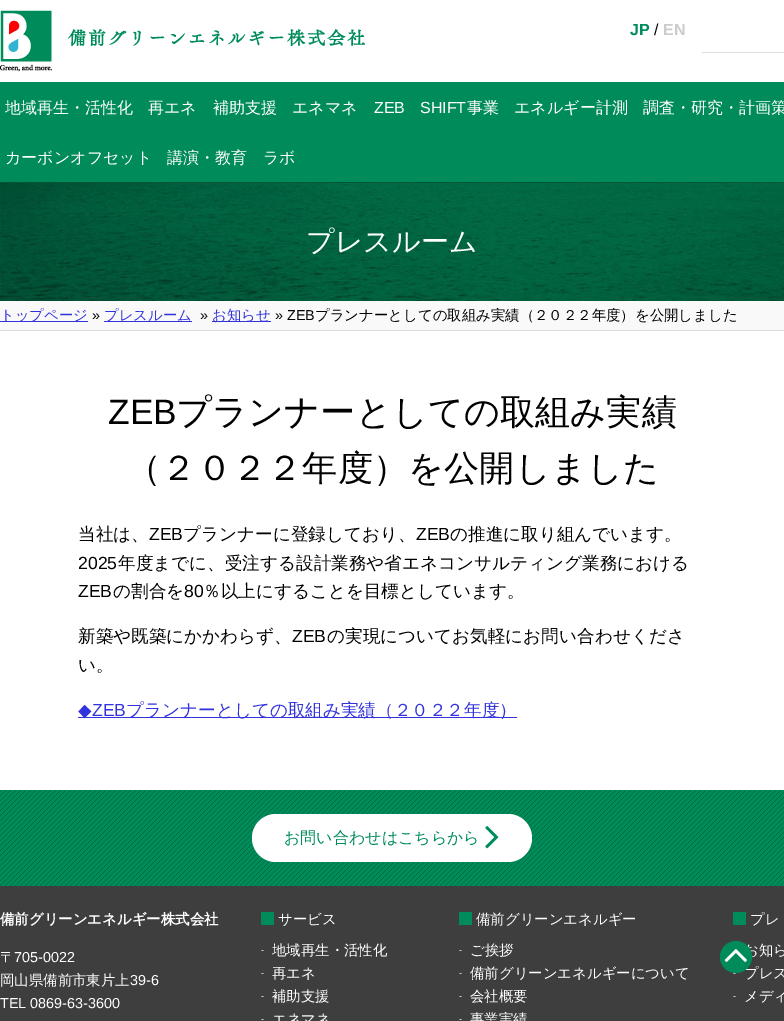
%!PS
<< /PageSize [784 1021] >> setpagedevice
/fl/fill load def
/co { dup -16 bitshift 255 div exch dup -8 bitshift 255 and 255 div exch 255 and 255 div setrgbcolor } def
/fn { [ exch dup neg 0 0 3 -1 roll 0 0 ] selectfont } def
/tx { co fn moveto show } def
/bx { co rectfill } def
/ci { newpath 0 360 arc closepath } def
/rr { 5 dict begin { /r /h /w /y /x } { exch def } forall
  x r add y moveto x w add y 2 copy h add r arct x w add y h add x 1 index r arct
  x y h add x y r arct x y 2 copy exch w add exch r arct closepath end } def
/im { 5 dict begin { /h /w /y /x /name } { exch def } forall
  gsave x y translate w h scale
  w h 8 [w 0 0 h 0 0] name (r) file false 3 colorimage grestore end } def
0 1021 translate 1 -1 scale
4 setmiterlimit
0 0 784 1021 16#FFFFFF bx
(media/1.raw) 0 10 365 62 im
702 52 82 1 16#DDDDDD bx
0 82 784 100 16#008C5A bx
(media/2.raw) 0 183 784 118 im
0 182 784 1 16#005634 bx
0 301 784 29 16#F9F9F9 bx
0 330 784 1 16#DDDDDD bx
0 321 88 1 16#3333DD bx
104 321 88 1 16#3333DD bx
212 321 59 1 16#3333DD bx
78 717 439 1 16#3333DD bx
(media/4.raw) 0 790 784 96 im
16#FFFFFF co
252 814 280 48 24 rr fl
(media/5.raw) 485 826 14 23 im
0 886 784 135 16#3E3E3E bx
261 912 13 13 16#008C5A bx
459 912 13 13 16#008C5A bx
733 912 13 13 16#008C5A bx
(JP) 630 35 /LiberationSans-Bold 16 16#008C5A tx
(/) 654 35 /LiberationSans-Regular 16 16#000000 tx
(EN) 663 35 /LiberationSans-Bold 16 16#CCCCCC tx
(地域再生・活性化) 5 113 /WenQuanYiZenHei-Medium 16 16#FFFFFF tx
(再エネ) 148 113 /WenQuanYiZenHei-Medium 16 16#FFFFFF tx
(補助支援) 213 113 /WenQuanYiZenHei-Medium 16 16#FFFFFF tx
(エネマネ) 292 113 /WenQuanYiZenHei-Medium 16 16#FFFFFF tx
(ZEB) 374 113 /LiberationSans-Regular 16 16#FFFFFF tx
(SHIFT) 420 113 /LiberationSans-Regular 16 16#FFFFFF tx
(事業) 467 113 /WenQuanYiZenHei-Medium 16 16#FFFFFF tx
(エネルギー計測) 514 113 /WenQuanYiZenHei-Medium 16 16#FFFFFF tx
(調査・研究・計画策) 643 113 /WenQuanYiZenHei-Medium 16 16#FFFFFF tx
(カーボンオフセット) 5 163 /WenQuanYiZenHei-Medium 16 16#FFFFFF tx
(講演・教育) 167 163 /WenQuanYiZenHei-Medium 16 16#FFFFFF tx
(ラボ) 263 163 /WenQuanYiZenHei-Medium 16 16#FFFFFF tx
(プレスルーム) 306 251 /WenQuanYiZenHei-Medium 28 16#FFFFFF tx
(トップページ) 0 320 /WenQuanYiZenHei-Medium 14.4 16#3333DD tx
(») 92 320 /LiberationSans-Regular 14.4 16#000000 tx
(プレスルーム) 104 320 /WenQuanYiZenHei-Medium 14.4 16#3333DD tx
(») 200 320 /LiberationSans-Regular 14.4 16#000000 tx
(お知らせ) 212 320 /WenQuanYiZenHei-Medium 14.4 16#3333DD tx
(» ZEB) 275 320 /LiberationSans-Regular 14.4 16#000000 tx
(プランナーとしての取組み実績（２０２２年度）を公開しました) 315 320 /WenQuanYiZenHei-Medium 14.4 16#000000 tx
(ZEB) 108 424 /LiberationSans-Regular 35.25 16#000000 tx
(プランナーとしての取組み実績) 176 424 /WenQuanYiZenHei-Medium 35.25 16#000000 tx
(（２０２２年度）を公開しました) 126 480 /WenQuanYiZenHei-Medium 35.25 16#000000 tx
(当社は、) 78 540 /WenQuanYiZenHei-Medium 17.6 16#000000 tx
(ZEB) 149 540 /LiberationSans-Regular 17.6 16#000000 tx
(プランナーに登録しており、) 183 540 /WenQuanYiZenHei-Medium 17.6 16#000000 tx
(ZEB) 416 540 /LiberationSans-Regular 17.6 16#000000 tx
(の推進に取り組んでいます。) 450 540 /WenQuanYiZenHei-Medium 17.6 16#000000 tx
(2025) 78 569 /LiberationSans-Regular 17.6 16#000000 tx
(年度までに、受注する設計業務や省エネコンサルティング業務における) 118 569 /WenQuanYiZenHei-Medium 17.6 16#000000 tx
(ZEB) 78 597 /LiberationSans-Regular 17.6 16#000000 tx
(の割合を) 113 597 /WenQuanYiZenHei-Medium 17.6 16#000000 tx
(80) 184 597 /LiberationSans-Regular 17.6 16#000000 tx
(％以上にすることを目標としています。) 203 597 /WenQuanYiZenHei-Medium 17.6 16#000000 tx
(新築や既築にかかわらず、) 78 642 /WenQuanYiZenHei-Medium 17.6 16#000000 tx
(ZEB) 292 642 /LiberationSans-Regular 17.6 16#000000 tx
(の実現についてお気軽にお問い合わせくださ) 327 642 /WenQuanYiZenHei-Medium 17.6 16#000000 tx
(い。) 78 671 /WenQuanYiZenHei-Medium 17.6 16#000000 tx
(◆) 78 716 /DejaVuSans-Regular 17.6 16#3333DD tx
(ZEB) 92 716 /LiberationSans-Regular 17.6 16#3333DD tx
(プランナーとしての取組み実績（２０２２年度）) 126 716 /WenQuanYiZenHei-Medium 17.6 16#3333DD tx
(お問い合わせはこちらから) 284 843 /WenQuanYiZenHei-Medium 16 16#008C5A tx
(備前グリーンエネルギー株式会社) 0 924 /WenQuanYiZenHei-Bold 14.4 16#FFFFFF tx
(〒) 0 962 /WenQuanYiZenHei-Medium 14.4 16#FFFFFF tx
(705-0022) 14 962 /LiberationSans-Regular 14.4 16#FFFFFF tx
(岡山県備前市東片上) 0 985 /WenQuanYiZenHei-Medium 14.4 16#FFFFFF tx
(39-6) 130 985 /LiberationSans-Regular 14.4 16#FFFFFF tx
(TEL 0869-63-3600) 0 1008 /LiberationSans-Regular 14.4 16#FFFFFF tx
(サービス) 278 924 /WenQuanYiZenHei-Medium 14.4 16#FFFFFF tx
(-) 261 953 /LiberationSans-Regular 9 16#FFFFFF tx
(地域再生・活性化) 272 955 /WenQuanYiZenHei-Medium 14.4 16#FFFFFF tx
(-) 261 976 /LiberationSans-Regular 9 16#FFFFFF tx
(再エネ) 272 978 /WenQuanYiZenHei-Medium 14.4 16#FFFFFF tx
(-) 261 999 /LiberationSans-Regular 9 16#FFFFFF tx
(補助支援) 272 1001 /WenQuanYiZenHei-Medium 14.4 16#FFFFFF tx
(-) 261 1022 /LiberationSans-Regular 9 16#FFFFFF tx
(エネマネ) 272 1024 /WenQuanYiZenHei-Medium 14.4 16#FFFFFF tx
(備前グリーンエネルギー) 476 924 /WenQuanYiZenHei-Medium 14.4 16#FFFFFF tx
(-) 459 953 /LiberationSans-Regular 9 16#FFFFFF tx
(ご挨拶) 470 955 /WenQuanYiZenHei-Medium 14.4 16#FFFFFF tx
(-) 459 976 /LiberationSans-Regular 9 16#FFFFFF tx
(備前グリーンエネルギーについて) 470 978 /WenQuanYiZenHei-Medium 14.4 16#FFFFFF tx
(-) 459 999 /LiberationSans-Regular 9 16#FFFFFF tx
(会社概要) 470 1001 /WenQuanYiZenHei-Medium 14.4 16#FFFFFF tx
(-) 459 1022 /LiberationSans-Regular 9 16#FFFFFF tx
(事業実績) 470 1024 /WenQuanYiZenHei-Medium 14.4 16#FFFFFF tx
(プレ) 750 924 /WenQuanYiZenHei-Medium 14.4 16#FFFFFF tx
(お知ら) 744 955 /WenQuanYiZenHei-Medium 14.4 16#FFFFFF tx
(-) 733 976 /LiberationSans-Regular 9 16#FFFFFF tx
(プレス) 744 978 /WenQuanYiZenHei-Medium 14.4 16#FFFFFF tx
16#008C5A co
736 957 16 ci fl
(media/3.raw) 724 949 23 13 im
(-) 733 999 /LiberationSans-Regular 9 16#FFFFFF tx
(メディ) 744 1001 /WenQuanYiZenHei-Medium 14.4 16#FFFFFF tx
showpage
